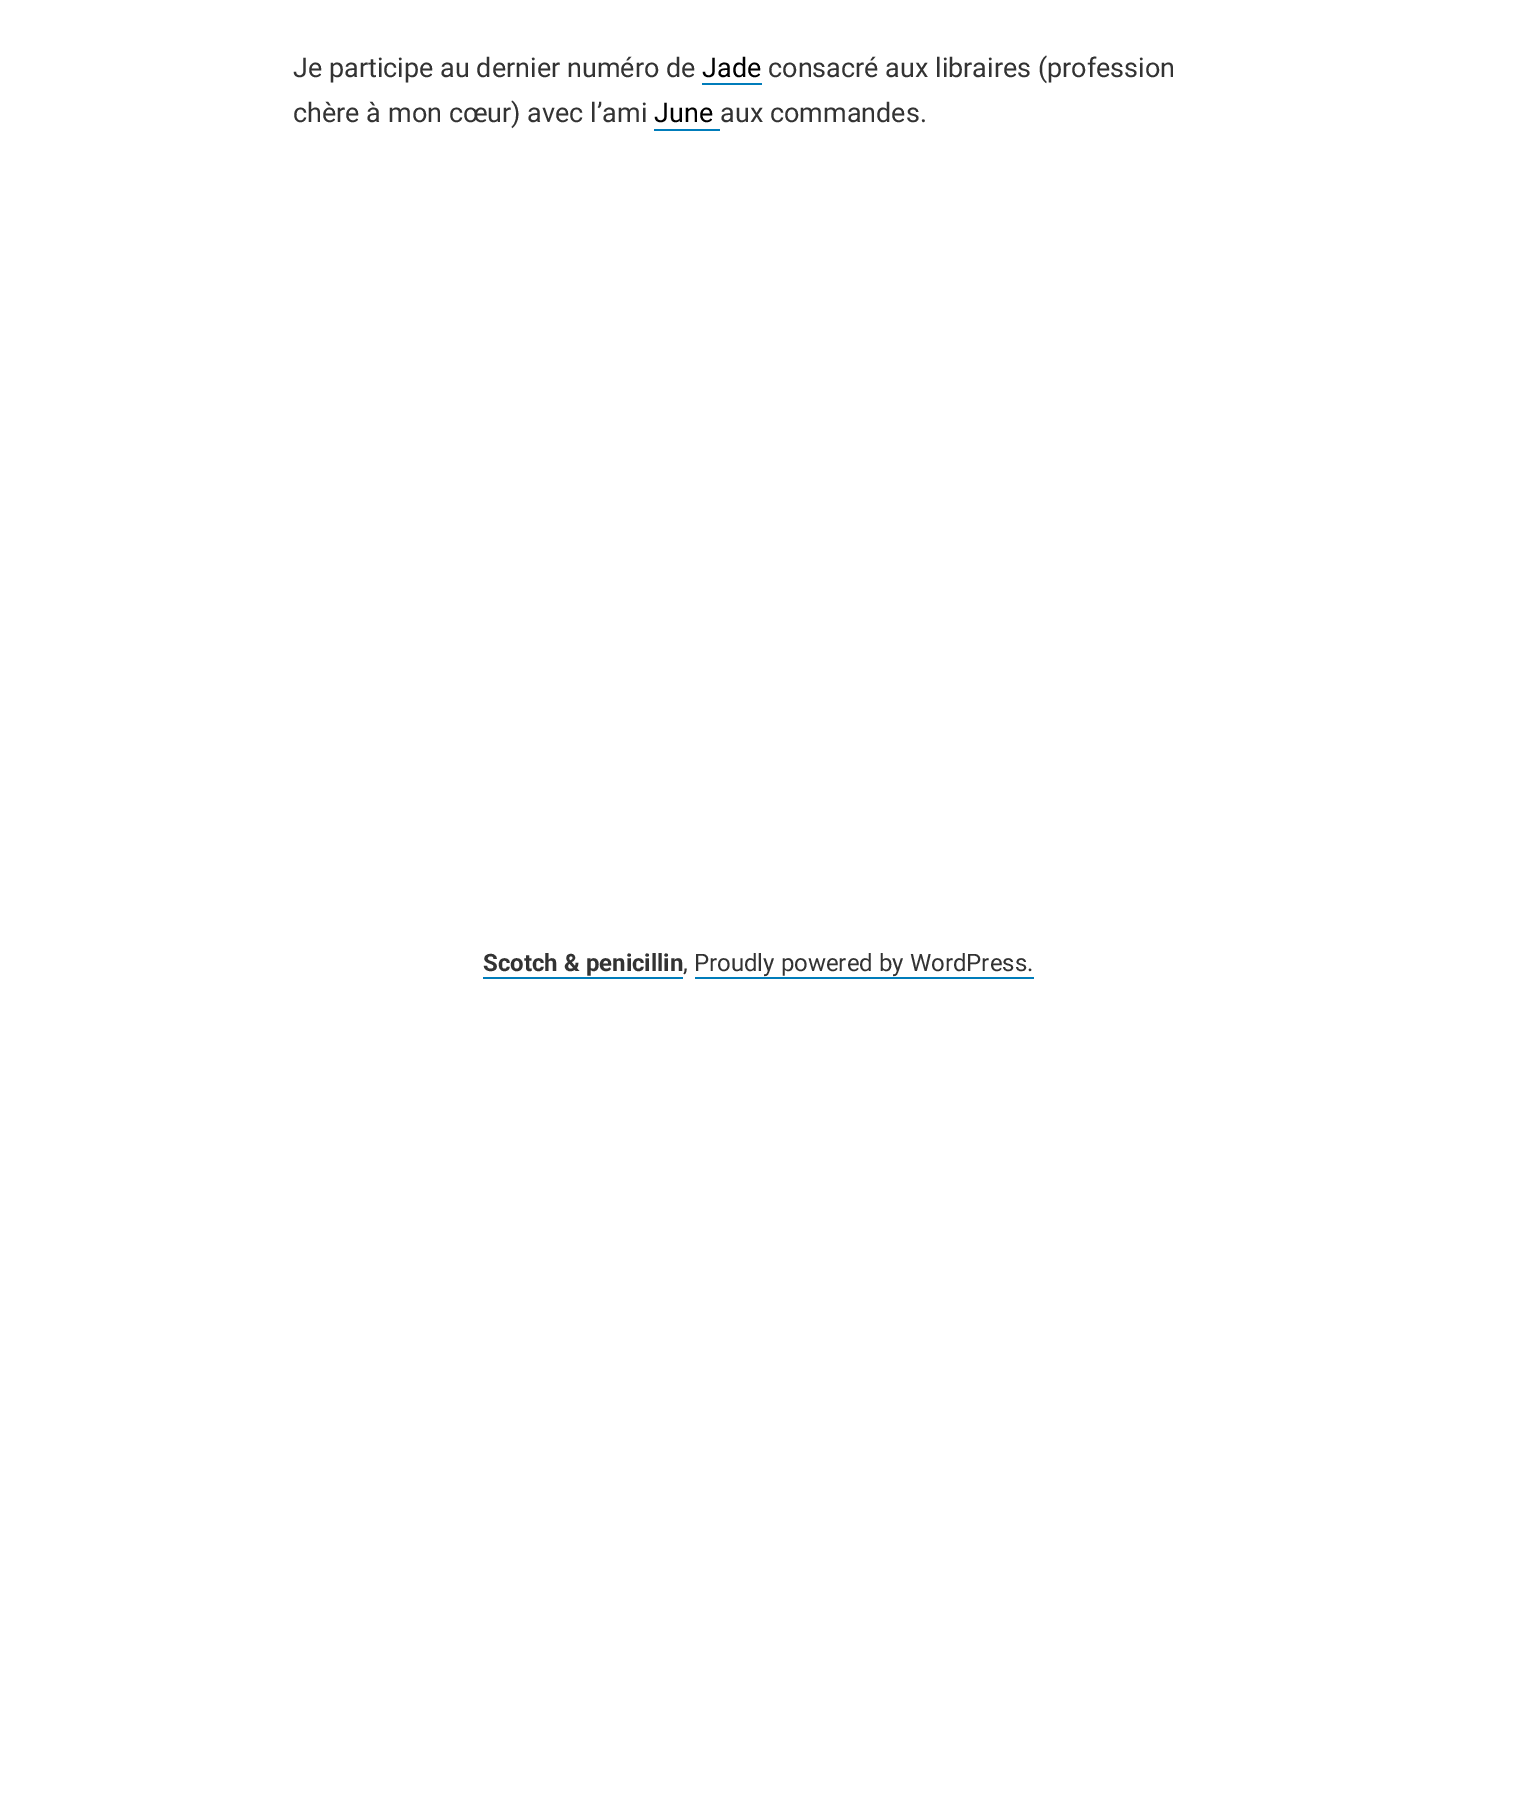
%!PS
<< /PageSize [1516 1808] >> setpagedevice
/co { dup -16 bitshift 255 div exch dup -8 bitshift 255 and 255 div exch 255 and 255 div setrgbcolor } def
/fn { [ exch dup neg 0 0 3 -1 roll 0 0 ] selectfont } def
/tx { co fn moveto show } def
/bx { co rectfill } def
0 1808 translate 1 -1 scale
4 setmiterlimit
0 0 1516 1808 16#FFFFFF bx
702 83 60 2 16#007CBA bx
654 129 66 2 16#007CBA bx
483 977 200 2 16#007CBA bx
695 977 339 2 16#007CBA bx
(Je participe au dernier numéro de) 293 77 /Roboto-Regular 27 16#333333 tx
(Jade) 702 77 /Roboto-Regular 27 16#000000 tx
(consacré aux libraires \(profession) 768 77 /Roboto-Regular 27 16#333333 tx
(chère à mon cœur\) avec l’ami) 293 122 /Roboto-Regular 27 16#333333 tx
(June) 654 122 /Roboto-Regular 27 16#000000 tx
(aux commandes.) 720 122 /Roboto-Regular 27 16#333333 tx
(Scotch & penicillin) 483 971 /Roboto-Bold 24 16#333333 tx
(, Proudly powered by WordPress.) 683 971 /Roboto-Regular 24 16#333333 tx
showpage
